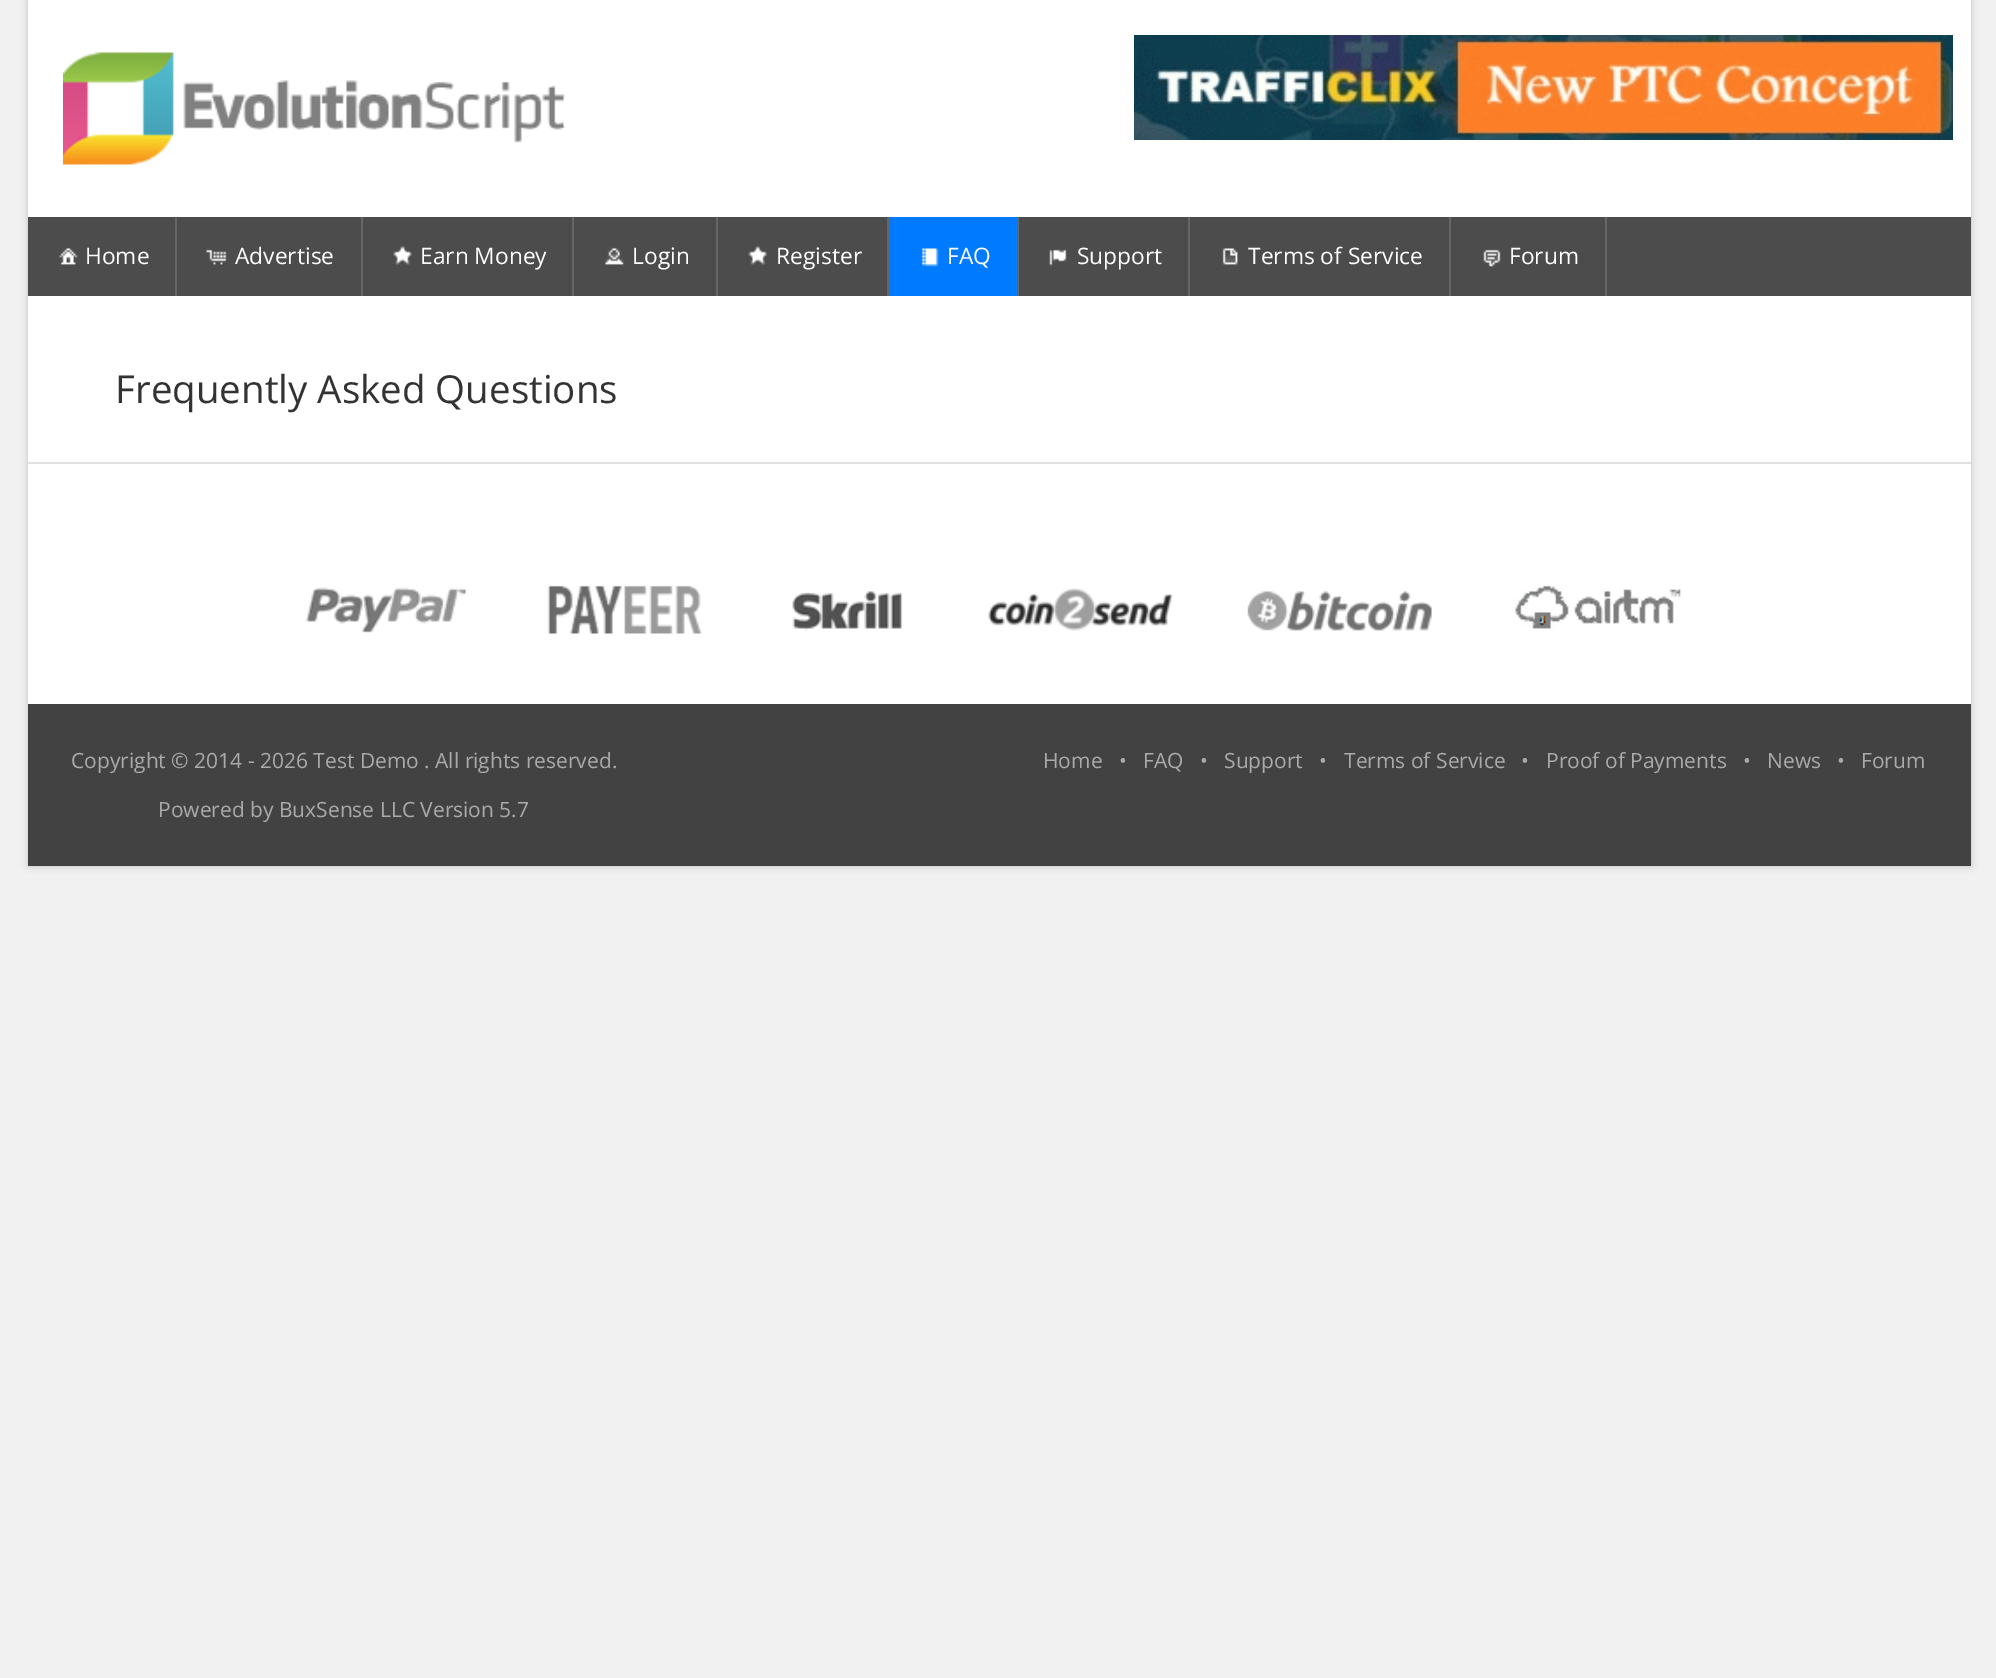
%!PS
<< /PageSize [1996 1678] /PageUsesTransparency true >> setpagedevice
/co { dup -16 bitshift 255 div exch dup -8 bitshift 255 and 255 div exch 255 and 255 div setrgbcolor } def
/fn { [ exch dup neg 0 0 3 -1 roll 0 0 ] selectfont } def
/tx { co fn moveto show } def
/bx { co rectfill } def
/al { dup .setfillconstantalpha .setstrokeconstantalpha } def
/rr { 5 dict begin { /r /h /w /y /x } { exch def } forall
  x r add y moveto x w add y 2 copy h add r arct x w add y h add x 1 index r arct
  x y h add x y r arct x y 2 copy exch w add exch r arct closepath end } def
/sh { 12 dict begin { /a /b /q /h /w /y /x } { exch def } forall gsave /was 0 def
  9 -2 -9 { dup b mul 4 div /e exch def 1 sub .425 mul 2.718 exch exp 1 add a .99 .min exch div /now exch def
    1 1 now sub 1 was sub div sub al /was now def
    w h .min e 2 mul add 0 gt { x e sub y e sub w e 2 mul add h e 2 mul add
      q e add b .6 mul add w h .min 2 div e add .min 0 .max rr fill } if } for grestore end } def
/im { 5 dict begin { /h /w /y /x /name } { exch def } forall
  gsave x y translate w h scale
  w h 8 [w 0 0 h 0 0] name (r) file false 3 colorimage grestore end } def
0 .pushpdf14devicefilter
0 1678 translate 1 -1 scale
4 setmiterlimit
0 0 1996 1678 16#F1F1F1 bx
16#000000 co
28 0 1943 866 0 3.5 .2 sh
28 0 1943 704 16#FFFFFF bx
(media/1.raw) 63 52 503 113 im
(media/2.raw) 1134 35 819 105 im
28 217 1943 79 16#4C4C4C bx
175 217 2 79 16#666666 bx
(media/3.raw) 59 248 19 17 im
361 217 2 79 16#666666 bx
(media/4.raw) 206 249 21 16 im
572 217 2 79 16#666666 bx
(media/5.raw) 393 246 19 19 im
716 217 2 79 16#666666 bx
(media/6.raw) 605 247 19 18 im
887 217 2 79 16#666666 bx
(media/7.raw) 748 246 19 19 im
889 217 128 79 16#007BFF bx
1017 217 2 79 16#666666 bx
(media/8.raw) 921 248 18 19 im
1188 217 2 79 16#666666 bx
(media/9.raw) 1049 249 18 18 im
1449 217 2 79 16#666666 bx
(media/10.raw) 1222 248 16 17 im
1605 217 2 79 16#666666 bx
(media/11.raw) 1483 249 18 18 im
28 462 1943 2 16#E0E0E0 bx
(media/12.raw) 306 587 160 46 im
(media/13.raw) 547 585 156 49 im
(media/14.raw) 792 591 110 40 im
(media/15.raw) 988 588 185 43 im
(media/16.raw) 1247 591 185 40 im
(media/17.raw) 1515 585 166 44 im
28 704 1943 162 16#424242 bx
(Home) 85 264 /OpenSans-Regular 22.75 16#FFFFFF tx
(Advertise) 235 264 /OpenSans-Regular 22.75 16#FFFFFF tx
(Earn Money) 420 264 /OpenSans-Regular 22.75 16#FFFFFF tx
(Login) 632 264 /OpenSans-Regular 22.75 16#FFFFFF tx
(Register) 776 264 /OpenSans-Regular 22.75 16#FFFFFF tx
(FAQ) 947 264 /OpenSans-Regular 22.75 16#FFFFFF tx
(Support) 1077 264 /OpenSans-Regular 22.75 16#FFFFFF tx
(Terms of Service) 1248 264 /OpenSans-Regular 22.75 16#FFFFFF tx
(Forum) 1509 264 /OpenSans-Regular 22.75 16#FFFFFF tx
(Frequently Asked Questions) 115 403 /OpenSans-Regular 38.5 16#333333 tx
(Copyright © 2014 - 2026 Test Demo . All rights reserved.) 71 768 /OpenSans-Regular 21 16#AAAAAA tx
(Powered by BuxSense LLC Version 5.7) 158 817 /OpenSans-Regular 21 16#AAAAAA tx
(Home) 1043 768 /OpenSans-Regular 21 16#AAAAAA tx
(•) 1119 768 /OpenSans-Regular 21 16#AAAAAA tx
(FAQ) 1143 768 /OpenSans-Regular 21 16#AAAAAA tx
(•) 1200 768 /OpenSans-Regular 21 16#AAAAAA tx
(Support) 1224 768 /OpenSans-Regular 21 16#AAAAAA tx
(•) 1319 768 /OpenSans-Regular 21 16#AAAAAA tx
(Terms of Service) 1344 768 /OpenSans-Regular 21 16#AAAAAA tx
(•) 1521 768 /OpenSans-Regular 21 16#AAAAAA tx
(Proof of Payments) 1546 768 /OpenSans-Regular 21 16#AAAAAA tx
(•) 1743 768 /OpenSans-Regular 21 16#AAAAAA tx
(News) 1767 768 /OpenSans-Regular 21 16#AAAAAA tx
(•) 1837 768 /OpenSans-Regular 21 16#AAAAAA tx
(Forum) 1861 768 /OpenSans-Regular 21 16#AAAAAA tx
.poppdf14devicefilter showpage
